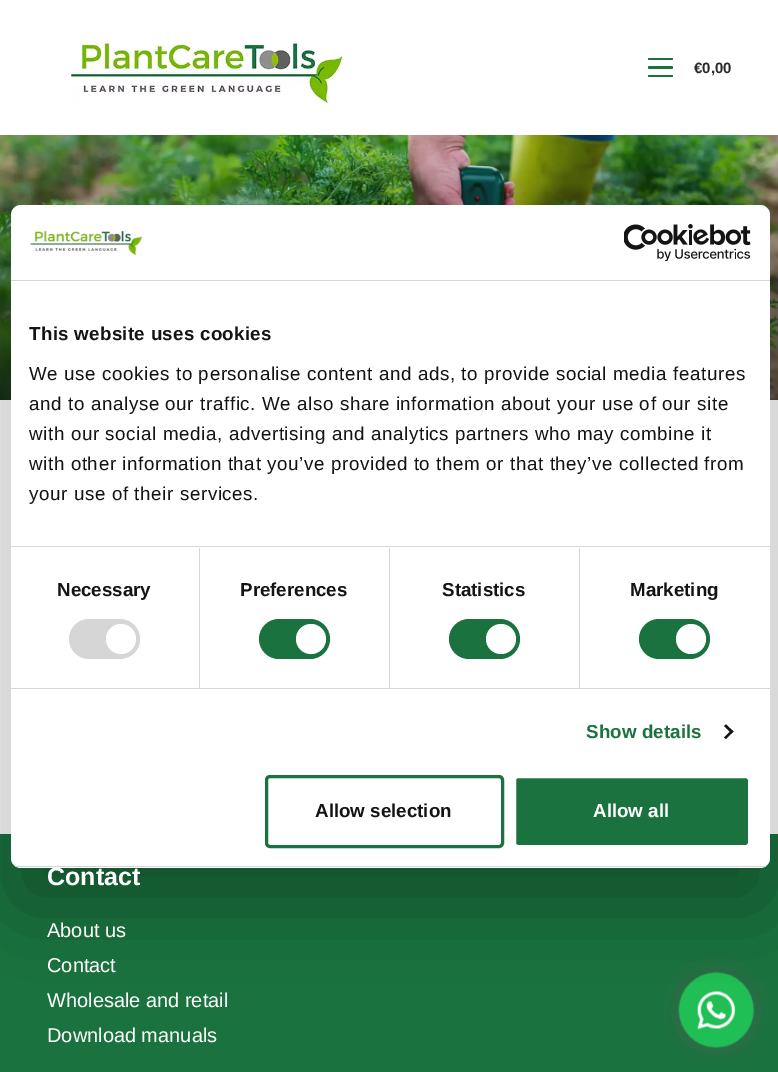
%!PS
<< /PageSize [778 1072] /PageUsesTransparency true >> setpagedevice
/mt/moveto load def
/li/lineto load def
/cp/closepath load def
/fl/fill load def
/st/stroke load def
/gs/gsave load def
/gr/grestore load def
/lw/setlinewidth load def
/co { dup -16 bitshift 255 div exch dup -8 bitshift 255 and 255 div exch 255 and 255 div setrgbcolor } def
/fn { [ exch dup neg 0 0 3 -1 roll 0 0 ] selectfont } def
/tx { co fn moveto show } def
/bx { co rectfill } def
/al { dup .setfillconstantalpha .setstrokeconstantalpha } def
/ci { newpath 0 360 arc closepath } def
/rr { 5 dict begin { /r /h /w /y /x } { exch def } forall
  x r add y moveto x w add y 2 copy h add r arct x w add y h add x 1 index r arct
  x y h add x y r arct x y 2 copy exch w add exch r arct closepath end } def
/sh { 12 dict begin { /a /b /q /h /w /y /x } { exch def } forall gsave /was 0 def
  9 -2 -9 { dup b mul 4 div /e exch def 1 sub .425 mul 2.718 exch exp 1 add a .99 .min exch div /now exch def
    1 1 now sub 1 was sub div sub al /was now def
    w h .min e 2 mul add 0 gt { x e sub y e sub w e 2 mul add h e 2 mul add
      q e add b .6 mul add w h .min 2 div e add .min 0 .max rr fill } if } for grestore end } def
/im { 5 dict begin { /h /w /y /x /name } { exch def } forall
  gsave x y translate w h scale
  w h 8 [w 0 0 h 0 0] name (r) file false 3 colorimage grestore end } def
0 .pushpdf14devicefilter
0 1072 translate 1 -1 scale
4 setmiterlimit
0 0 778 1072 16#FFFFFF bx
(media/1.raw) 71 40 274 65 im
16#1A733F co
648 58 25 2 1 rr fl
648 66 25 3 1.5 rr fl
648 75 25 2 1 rr fl
(media/2.raw) 0 135 778 265 im
0 834 778 238 16#1A733F bx
(media/5.raw) 662 956 108 108 im
16#000000 co
11 245 759 663 10 42.5 .3 sh
16#FFFFFF co
11 205 759 663 10 rr fl
11 280 759 1 16#D6D6D6 bx
(media/3.raw) 30 230 113 26 im
(media/4.raw) 624 224 127 37 im
11 546 759 1 16#D6D6D6 bx
11 688 759 1 16#D6D6D6 bx
199 548 1 140 16#D6D6D6 bx
69 619 71 40 20 rr fl
16#FFFFFF co
121 639 15 ci fl
389 548 1 140 16#D6D6D6 bx
16#1A733F co
259 619 71 40 20 rr fl
16#FFFFFF co
311 639 15 ci fl
579 548 1 140 16#D6D6D6 bx
16#1A733F co
449 619 71 40 20 rr fl
16#FFFFFF co
501 639 15 ci fl
16#1A733F co
639 619 71 40 20 rr fl
16#FFFFFF co
691 639 15 ci fl
16#141414 co
726 724.5 mt 733.5 731.5 li 731.5 733.5 li 724 726 li cp fl
731.5 730 mt 733.5 731.5 li 726 739 li 724 737.5 li cp fl
gs
11 205 759 663 10 rr clip newpath
11 866 759 1 16#D6D6D6 bx
gr
16#1A733F co
3 lw
266.5 776.5 236 70 3.5 rr st
514.5 776.5 235 70 3.5 rr gs fl gr
16#FFFFFF co
st
(€0,00) 694 73 /LiberationSans-Bold 15 16#292929 tx
(Contact) 47 885 /LiberationSans-Bold 25 16#FFFFFF tx
(About us) 47 937 /LiberationSans-Regular 20 16#FFFFFF tx
(Contact) 47 972 /LiberationSans-Regular 20 16#FFFFFF tx
(Wholesale and retail) 47 1007 /LiberationSans-Regular 20 16#FFFFFF tx
(Download manuals) 47 1042 /LiberationSans-Regular 20 16#FFFFFF tx
/LiberationSans-Bold 18.75 fn
16#141414 co
29 340 mt .3 0 (This website uses cookies) ashow
/LiberationSans-Regular 18.75 fn
29 380 mt .62 0 (We use cookies to personalise content and ads, to provide social media features) ashow
29 410 mt .62 0 (and to analyse our traffic. We also share information about your use of our site) ashow
29 440 mt .62 0 (with our social media, advertising and analytics partners who may combine it) ashow
29 470 mt .62 0 (with other information that you’ve provided to them or that they’ve collected from) ashow
29 500 mt .62 0 (your use of their services.) ashow
(Necessary) 57 596 /LiberationSans-Bold 18.75 16#141414 tx
(Preferences) 240 596 /LiberationSans-Bold 18.75 16#141414 tx
(Statistics) 442 596 /LiberationSans-Bold 18.75 16#141414 tx
(Marketing) 630 596 /LiberationSans-Bold 18.75 16#141414 tx
16#1A733F co
586 738 mt .1 0 (Show details) ashow
(Allow selection) 315 817 /LiberationSans-Bold 18.75 16#141414 tx
(Allow all) 593 817 /LiberationSans-Bold 18.75 16#FFFFFF tx
.poppdf14devicefilter showpage
